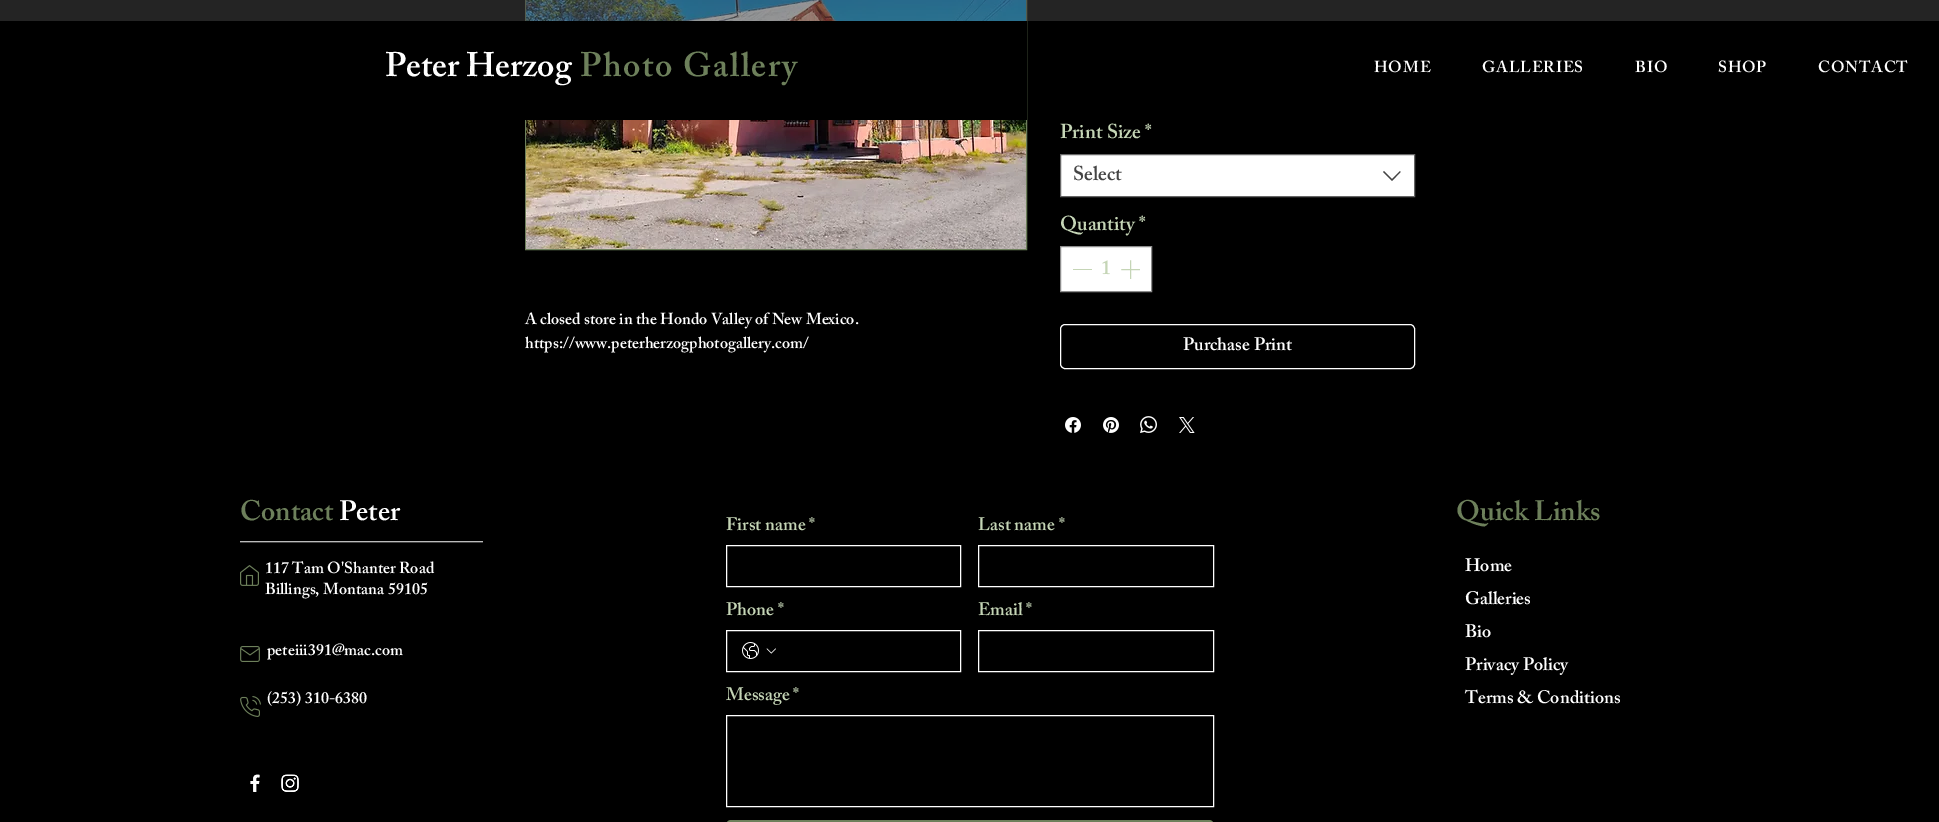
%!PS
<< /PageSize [1939 822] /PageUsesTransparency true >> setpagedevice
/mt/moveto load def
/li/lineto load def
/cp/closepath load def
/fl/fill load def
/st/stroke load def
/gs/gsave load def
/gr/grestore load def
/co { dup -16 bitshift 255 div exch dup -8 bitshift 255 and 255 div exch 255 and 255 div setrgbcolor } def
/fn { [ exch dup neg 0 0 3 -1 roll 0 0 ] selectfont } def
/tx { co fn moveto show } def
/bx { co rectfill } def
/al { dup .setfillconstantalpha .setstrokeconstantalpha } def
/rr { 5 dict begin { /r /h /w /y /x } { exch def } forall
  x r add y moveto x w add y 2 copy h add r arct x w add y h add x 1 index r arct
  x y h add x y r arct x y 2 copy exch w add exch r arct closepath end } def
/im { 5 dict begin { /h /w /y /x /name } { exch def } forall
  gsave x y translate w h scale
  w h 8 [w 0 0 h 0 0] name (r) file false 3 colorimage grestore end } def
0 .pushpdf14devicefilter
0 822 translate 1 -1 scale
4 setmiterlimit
0 0 1939 822 16#000000 bx
16#6D805B co
525.5 -.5 501 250 rectstroke
(media/1.raw) 526 0 500 249 im
0.55 al
0 0 1939 21 16#414141 bx
1 al
525 21 502 99 16#000000 bx
16#FFFFFF co
1060.5 154.5 mt 1414.5 154.5 li 1414.5 196.5 li 1060.5 196.5 li cp gs fl gr
16#666666 co
st
16#444444 co
1400 171 mt 1400.5 172 li 1392 181 li 1383 172 li 1384 171 li 1392 179 li cp eofill
16#FFFFFF co
1060.5 246.5 mt 1151.5 246.5 li 1151.5 291.5 li 1060.5 291.5 li cp gs fl gr
16#8D8D8D co
st
1073 269 19 1 16#C5D5B6 bx
(media/2.raw) 1121 260 19 19 im
16#FFFFFF co
1060.5 324.5 354 44 4.5 rr st
(media/3.raw) 1065 417 16 16 im
(media/4.raw) 1103 417 16 16 im
(media/5.raw) 1140 416 17 17 im
(media/6.raw) 1179 417 16 16 im
(media/7.raw) 240 565 19 21 im
(media/8.raw) 240 646 20 16 im
(media/9.raw) 240 696 21 21 im
(media/10.raw) 250 774 10 18 im
(media/11.raw) 281 774 18 18 im
726.5 545.5 234 41 rectstroke
978.5 545.5 235 41 rectstroke
726.5 630.5 234 41 rectstroke
(media/12.raw) 742 642 17 17 im
(media/13.raw) 766 648 10 6 im
978.5 630.5 235 41 rectstroke
726.5 715.5 487 91 rectstroke
16#6D805B co
726 820 488 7 5 rr fl
(Peter Herzog) 385 76 /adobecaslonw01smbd-SemiBold 34 16#FFFFFF tx
16#6D805B co
580 76 mt 1.75 0 (Photo Gallery) ashow
/adobecaslonw01smbd-SemiBold 16 fn
16#FFFFFF co
1374 72 mt .75 0 (HOME) ashow
1482 72 mt .75 0 (GALLERIES) ashow
1635 72 mt .75 0 (BIO) ashow
1718 72 mt .75 0 (SHOP) ashow
1818 72 mt .75 0 (CONTACT) ashow
(A closed store in the Hondo Valley of New Mexico.) 525 324 /adobecaslonw01smbd-SemiBold 16 16#FFFFFF tx
(https://www.peterherzogphotogallery.com/) 525 348 /adobecaslonw01smbd-SemiBold 16 16#FFFFFF tx
(Print Size *) 1060 138 /adobecaslonw01smbd-SemiBold 20 16#C5D5B6 tx
(Select) 1073 180 /adobecaslonw01smbd-SemiBold 20 16#444444 tx
(Quantity *) 1060 230 /adobecaslonw01smbd-SemiBold 20 16#C5D5B6 tx
(1) 1101 274 /adobecaslonw01smbd-SemiBold 20 16#C5D5B6 tx
(Purchase Print) 1183 350 /adobecaslonw01smbd-SemiBold 18 16#FFFFFF tx
(Contact) 240 520 /adobecaslonw01smbd-SemiBold 28 16#6D805B tx
(Peter) 339 520 /adobecaslonw01smbd-SemiBold 28 16#FFFFFF tx
(___________________________) 240 540 /adobecaslonw01smbd-SemiBold 18 16#FFFFFF tx
(117 Tam O'Shanter Road) 265 573 /adobecaslonw01smbd-SemiBold 16 16#FFFFFF tx
(Billings, Montana 59105) 265 594 /adobecaslonw01smbd-SemiBold 16 16#FFFFFF tx
(peteiii391@mac.com) 267 655 /adobecaslonw01smbd-SemiBold 16 16#FFFFFF tx
(\(253\) 310-6380) 267 703 /adobecaslonw01smbd-SemiBold 16 16#FFFFFF tx
(First name *) 726 530 /adobecaslonw01smbd-SemiBold 18 16#C5D5B6 tx
(Last name *) 978 530 /adobecaslonw01smbd-SemiBold 18 16#C5D5B6 tx
(Phone *) 726 615 /adobecaslonw01smbd-SemiBold 18 16#C5D5B6 tx
(Email *) 978 615 /adobecaslonw01smbd-SemiBold 18 16#C5D5B6 tx
(Message *) 726 700 /adobecaslonw01smbd-SemiBold 18 16#C5D5B6 tx
(Quick Links) 1456 520 /adobecaslonw01smbd-SemiBold 28 16#6D805B tx
(Home) 1465 571 /adobecaslonw01smbd-SemiBold 18 16#FFFFFF tx
(Galleries) 1465 604 /adobecaslonw01smbd-SemiBold 18 16#FFFFFF tx
(Bio) 1465 637 /adobecaslonw01smbd-SemiBold 18 16#FFFFFF tx
(Privacy Policy) 1465 670 /adobecaslonw01smbd-SemiBold 18 16#FFFFFF tx
(Terms & Conditions) 1465 703 /adobecaslonw01smbd-SemiBold 18 16#FFFFFF tx
.poppdf14devicefilter showpage
